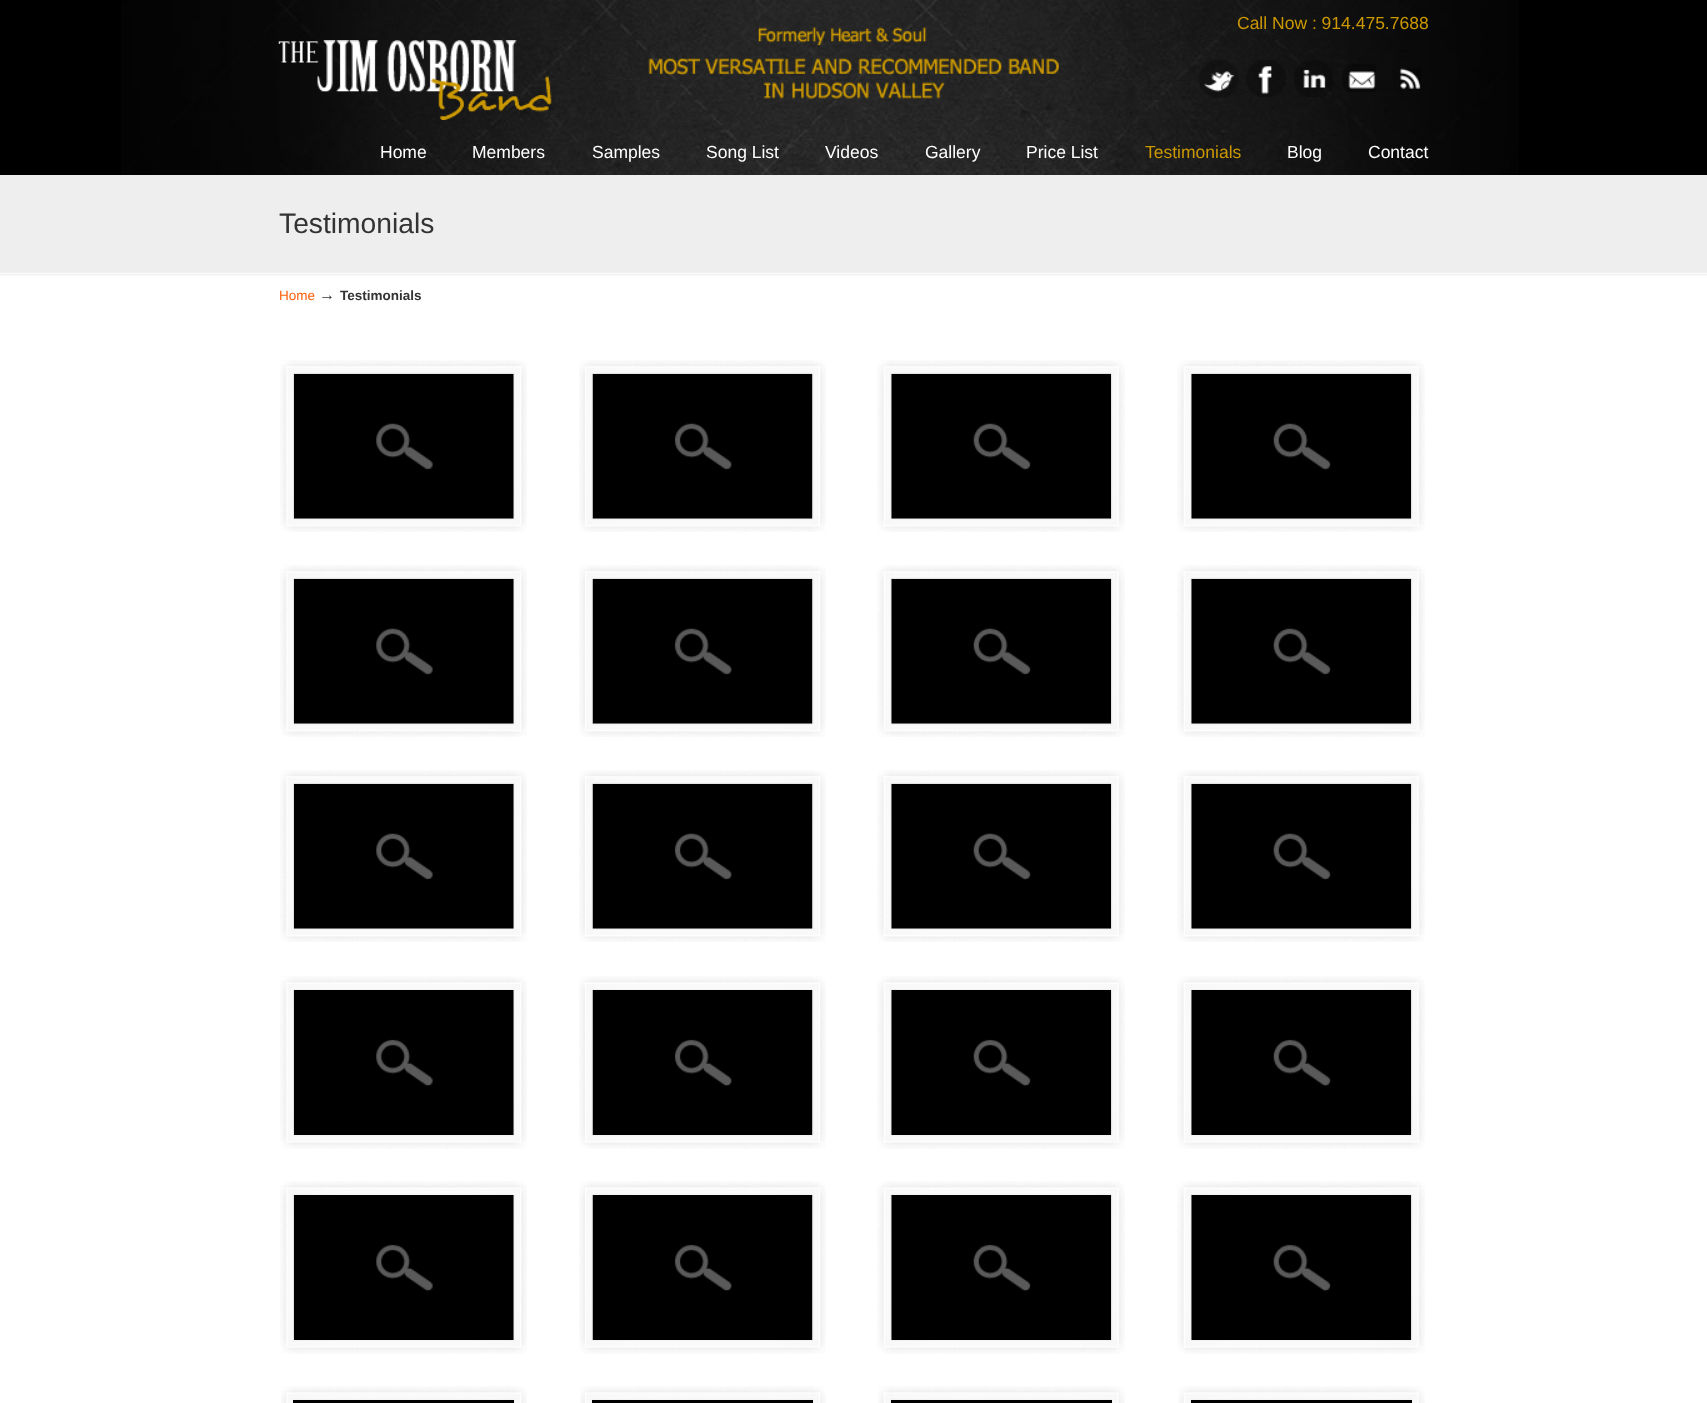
<!DOCTYPE html>
<meta charset="utf-8">
<style>body { margin: 0 } canvas { display: block }</style>
<canvas id="canvas" width="1707" height="1403"></canvas>
<img id="img1" src="img_01.png" hidden>
<img id="img2" src="img_02.png" hidden>
<img id="img3" src="img_03.png" hidden>
<img id="img4" src="img_04.png" hidden>
<img id="img5" src="img_05.png" hidden>
<img id="img6" src="img_06.png" hidden>
<img id="img7" src="img_07.png" hidden>
<img id="img8" src="img_08.png" hidden>
<img id="img9" src="img_09.png" hidden>
<img id="img10" src="img_10.png" hidden>
<img id="img11" src="img_11.png" hidden>
<img id="img12" src="img_12.png" hidden>
<img id="img13" src="img_13.png" hidden>
<img id="img14" src="img_14.png" hidden>
<img id="img15" src="img_15.png" hidden>
<img id="img16" src="img_16.png" hidden>
<img id="img17" src="img_17.png" hidden>
<img id="img18" src="img_18.png" hidden>
<img id="img19" src="img_19.png" hidden>
<img id="img20" src="img_20.png" hidden>
<img id="img21" src="img_21.png" hidden>
<img id="img22" src="img_22.png" hidden>
<img id="img23" src="img_23.png" hidden>
<img id="img24" src="img_24.png" hidden>
<img id="img25" src="img_25.png" hidden>
<img id="img26" src="img_26.png" hidden>
<img id="img27" src="img_27.png" hidden>
<img id="img28" src="img_28.png" hidden>
<img id="img29" src="img_29.png" hidden>
<img id="img30" src="img_30.png" hidden>
<img id="img31" src="img_31.png" hidden>
<img id="img32" src="img_32.png" hidden>
<img id="img33" src="img_33.png" hidden>
<img id="img34" src="img_34.png" hidden>
<img id="img35" src="img_35.png" hidden>
<img id="img36" src="img_36.png" hidden>
<img id="img37" src="img_37.png" hidden>
<script>
window.onload = function () {
	const canvas = document.getElementById("canvas");
	const ctx = canvas.getContext("2d");
	ctx.miterLimit = 4;
	ctx.fontKerning = "normal";
	function txt(s, x, y) {
		ctx.fillText(s, x, y);
	}
	function fill(x, y, w, h) {
		ctx.fillRect(x, y, w, h);
	}
	function img(id, x, y, w, h) {
		ctx.drawImage(document.getElementById(id), x, y, w, h);
	}

	ctx.fillStyle = "#000000";
	fill(0, 0, 1707, 1403);
	img("img1", 121, 0, 1398, 175);
	img("img2", 278, 40, 274, 80);
	img("img3", 1199, 60, 40, 38);
	img("img4", 1246, 60, 40, 37);
	img("img5", 1294, 60, 39, 37);
	img("img6", 1342, 64, 34, 28);
	img("img7", 1399, 68, 22, 21);
	ctx.fillStyle = "#EEEEEE";
	fill(0, 175, 1707, 98);
	ctx.fillStyle = "#FFFFFF";
	fill(0, 273, 1707, 1130);
	img("img8", 0, 272, 1707, 4);
	img("img9", 280, 360, 247, 172);
	fill(294, 374, 220, 145);
	img("img10", 293, 373, 221, 146);
	img("img11", 579, 360, 247, 172);
	fill(593, 374, 220, 145);
	img("img12", 592, 373, 221, 146);
	img("img13", 877, 360, 248, 172);
	fill(891, 374, 220, 145);
	img("img14", 891, 373, 221, 146);
	img("img15", 1177, 360, 248, 172);
	fill(1191, 374, 220, 145);
	img("img14", 1191, 373, 221, 146);
	img("img16", 280, 565, 247, 172);
	fill(294, 579, 220, 145);
	img("img17", 293, 578, 221, 146);
	img("img18", 579, 565, 247, 172);
	fill(593, 579, 220, 145);
	img("img19", 592, 578, 221, 146);
	img("img20", 877, 565, 248, 172);
	fill(891, 579, 220, 145);
	img("img21", 891, 578, 221, 146);
	img("img22", 1177, 565, 248, 172);
	fill(1191, 579, 220, 145);
	img("img21", 1191, 578, 221, 146);
	img("img9", 280, 770, 247, 172);
	fill(294, 784, 220, 145);
	img("img10", 293, 783, 221, 146);
	img("img11", 579, 770, 247, 172);
	fill(593, 784, 220, 145);
	img("img12", 592, 783, 221, 146);
	img("img13", 877, 770, 248, 172);
	fill(891, 784, 220, 145);
	img("img14", 891, 783, 221, 146);
	img("img15", 1177, 770, 248, 172);
	fill(1191, 784, 220, 145);
	img("img14", 1191, 783, 221, 146);
	img("img23", 280, 976, 247, 173);
	fill(513, 990, 1, 145);
	img("img24", 293, 990, 221, 145);
	img("img25", 579, 976, 247, 173);
	fill(812, 990, 1, 145);
	img("img26", 592, 990, 221, 145);
	img("img27", 877, 976, 248, 173);
	fill(891, 990, 1, 145);
	img("img28", 891, 990, 221, 145);
	img("img29", 1177, 976, 248, 173);
	fill(1191, 990, 1, 145);
	img("img28", 1191, 990, 221, 145);
	img("img30", 280, 1181, 247, 173);
	fill(513, 1195, 1, 145);
	img("img24", 293, 1195, 221, 145);
	img("img31", 579, 1181, 247, 173);
	fill(812, 1195, 1, 145);
	img("img26", 592, 1195, 221, 145);
	img("img32", 877, 1181, 248, 173);
	fill(891, 1195, 1, 145);
	img("img28", 891, 1195, 221, 145);
	img("img33", 1177, 1181, 248, 173);
	fill(1191, 1195, 1, 145);
	img("img28", 1191, 1195, 221, 145);
	img("img34", 281, 1386, 246, 17);
	ctx.fillStyle = "#000000";
	fill(293, 1400, 221, 3);
	img("img35", 580, 1386, 246, 17);
	fill(592, 1400, 221, 3);
	img("img36", 878, 1386, 247, 17);
	fill(891, 1400, 221, 3);
	img("img37", 1178, 1386, 247, 17);
	fill(1191, 1400, 221, 3);
	ctx.font = "17.5px Liberation Sans";
	ctx.fillStyle = "#CB9800";
	txt("Call Now : 914.475.7688", 1237, 29);
	ctx.fillStyle = "#FFFFFF";
	txt("Home", 380, 158);
	txt("Members", 472, 158);
	txt("Samples", 592, 158);
	txt("Song List", 706, 158);
	txt("Videos", 825, 158);
	txt("Gallery", 925, 158);
	txt("Price List", 1026, 158);
	ctx.fillStyle = "#CB9800";
	txt("Testimonials", 1145, 158);
	ctx.fillStyle = "#FFFFFF";
	txt("Blog", 1287, 158);
	txt("Contact", 1368, 158);
	ctx.font = "28.25px Liberation Sans";
	ctx.fillStyle = "#333333";
	txt("Testimonials", 279, 233);
	ctx.font = "13.5px Liberation Sans";
	ctx.fillStyle = "#FE5E08";
	txt("Home", 279, 300);
	ctx.font = "16px Liberation Sans";
	ctx.fillStyle = "#333333";
	txt("→", 319, 300);
	ctx.font = "bold 13.5px Liberation Sans";
	txt("Testimonials", 340, 300);
};
</script>
